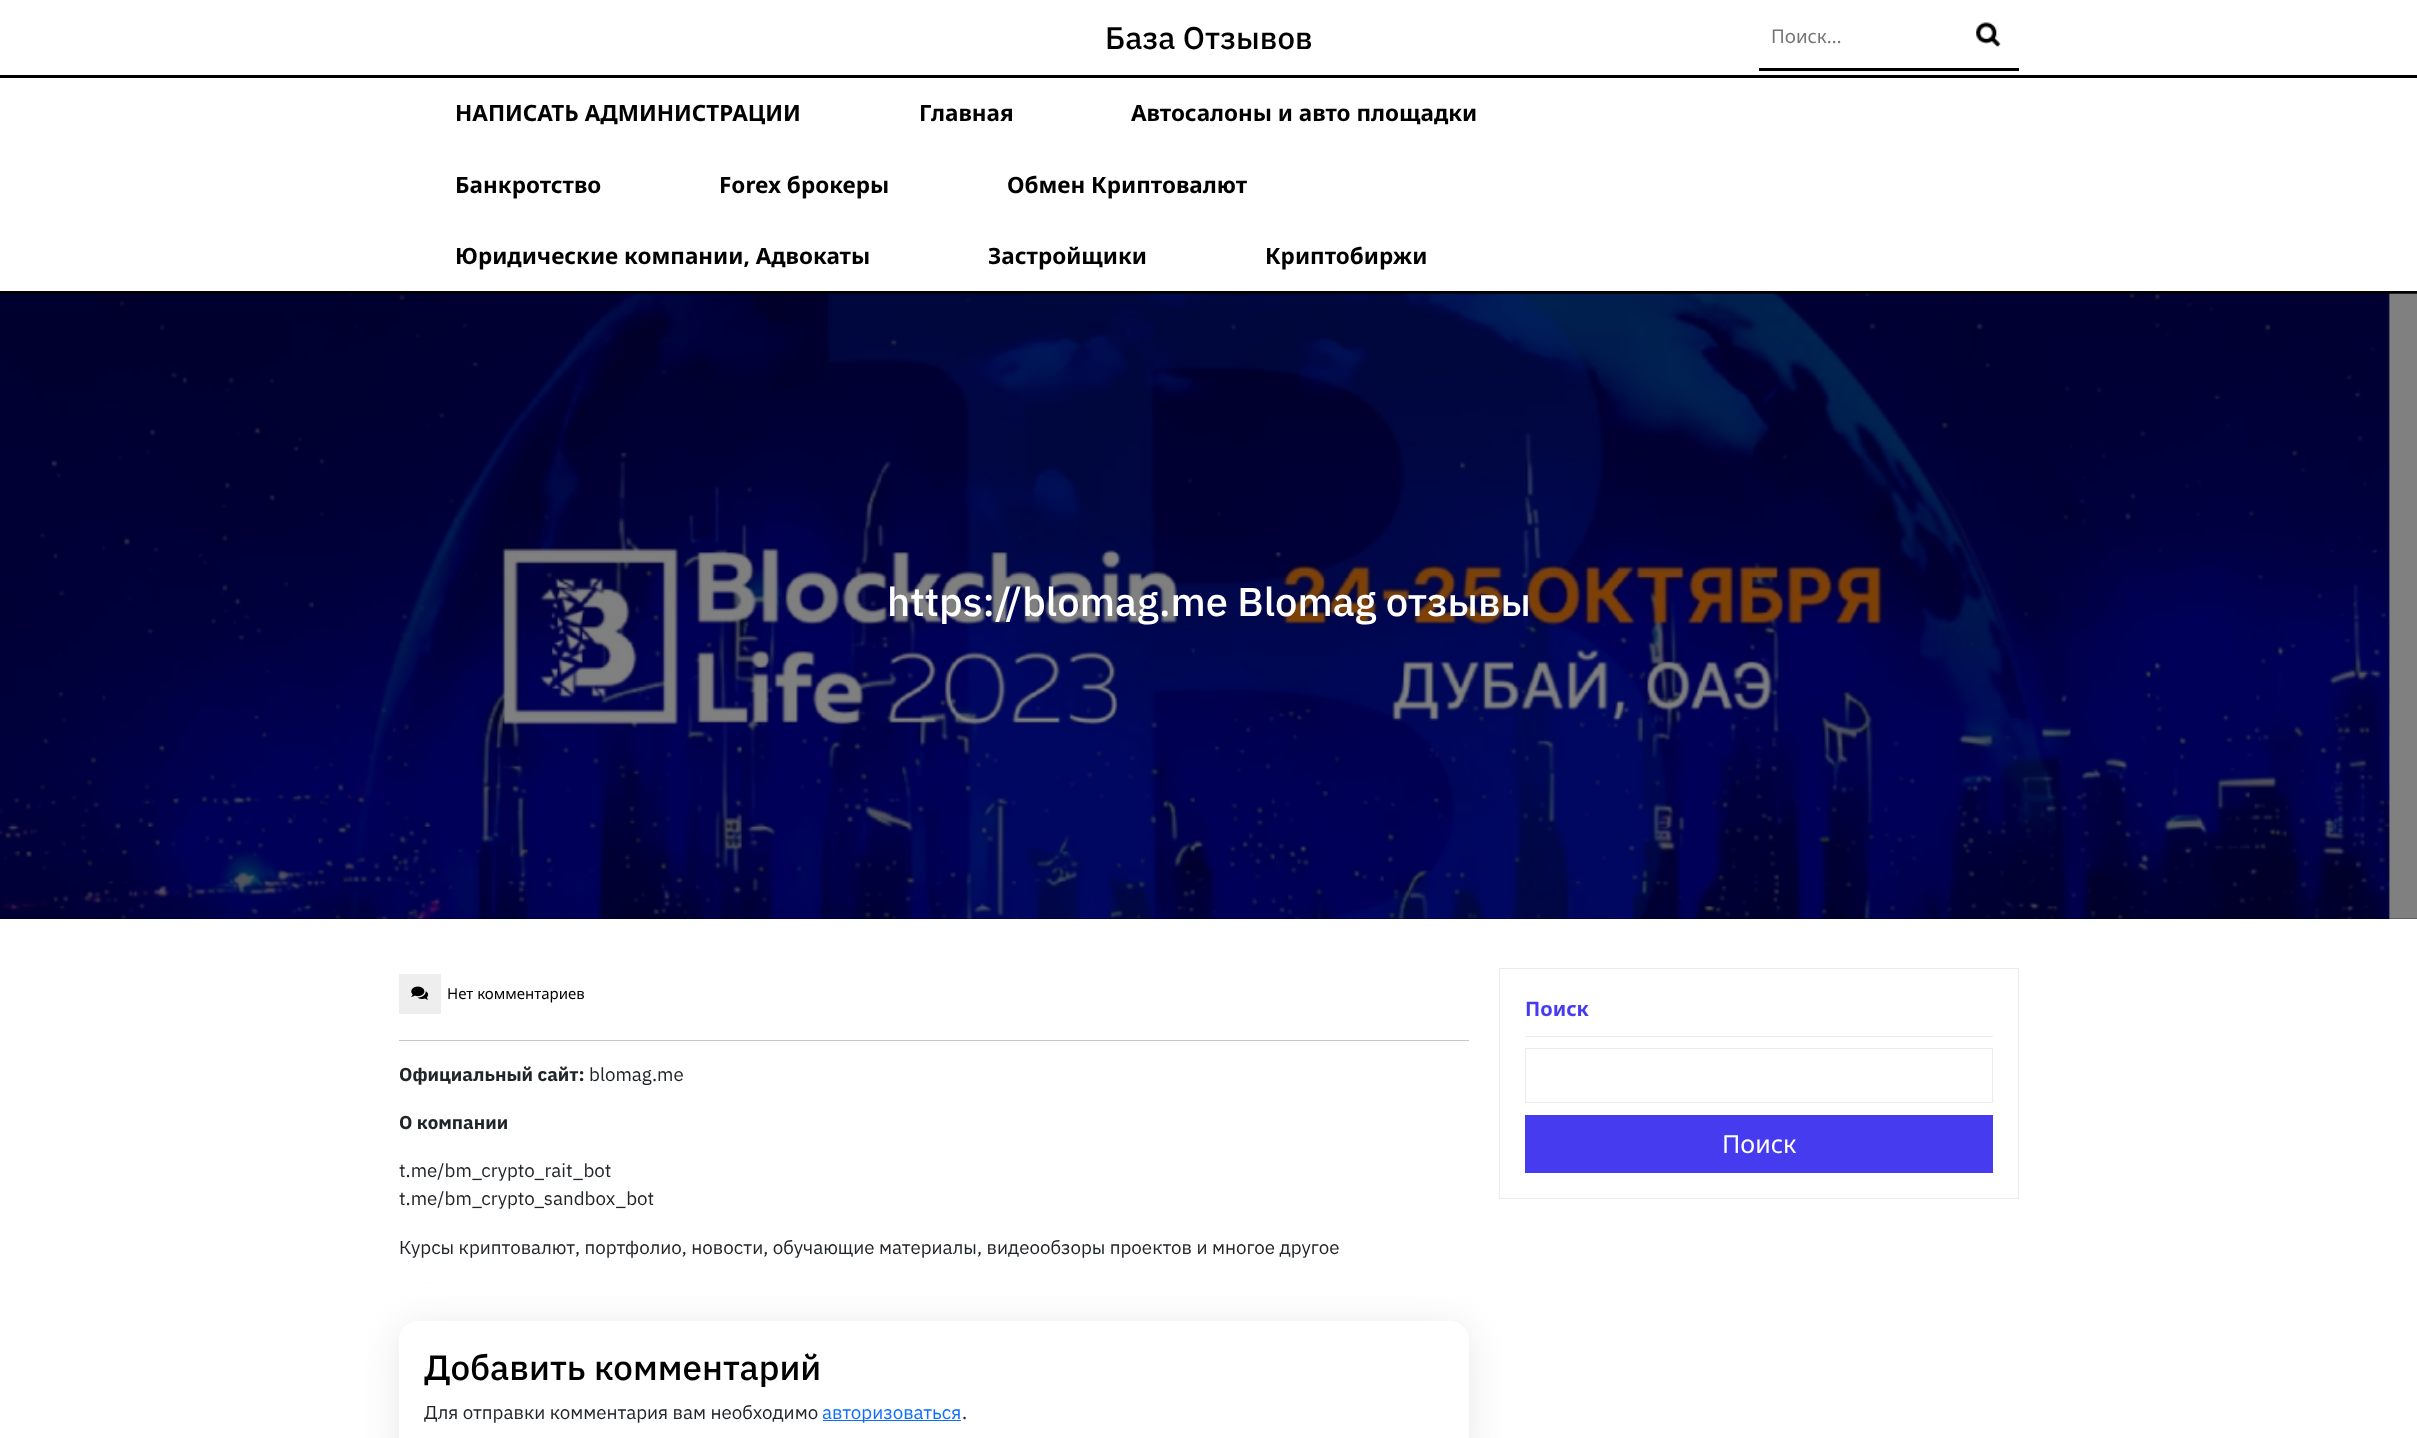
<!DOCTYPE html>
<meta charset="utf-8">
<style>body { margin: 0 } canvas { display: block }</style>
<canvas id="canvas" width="2417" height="1438"></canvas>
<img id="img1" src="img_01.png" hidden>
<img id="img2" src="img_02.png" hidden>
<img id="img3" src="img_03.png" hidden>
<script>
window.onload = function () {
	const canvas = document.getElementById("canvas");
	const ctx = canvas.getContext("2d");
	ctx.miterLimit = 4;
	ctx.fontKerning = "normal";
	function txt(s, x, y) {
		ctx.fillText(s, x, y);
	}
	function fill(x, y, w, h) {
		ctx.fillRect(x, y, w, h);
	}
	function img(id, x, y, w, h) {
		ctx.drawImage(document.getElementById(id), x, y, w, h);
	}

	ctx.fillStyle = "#FFFFFF";
	fill(0, 0, 2417, 1438);
	ctx.fillStyle = "#000000";
	fill(1759, 68, 260, 3);
	img("img1", 1976, 22, 25, 25);
	fill(0, 75, 2417, 3);
	fill(0, 291, 2417, 628);
	img("img2", 0, 293, 2417, 626);
	ctx.fillStyle = "#EEEEEE";
	fill(399, 974, 42, 40);
	img("img3", 411, 986, 18, 14);
	ctx.fillStyle = "#C8C9CA";
	fill(399, 1040, 1070, 1);
	ctx.save();
	ctx.beginPath();
	ctx.moveTo(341, 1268);
	ctx.lineTo(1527, 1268);
	ctx.lineTo(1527, 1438);
	ctx.lineTo(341, 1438);
	ctx.closePath();
	ctx.moveTo(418, 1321);
	ctx.lineTo(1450, 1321);
	ctx.bezierCurveTo(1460.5, 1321, 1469, 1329.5, 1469, 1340);
	ctx.lineTo(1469, 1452);
	ctx.bezierCurveTo(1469, 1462.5, 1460.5, 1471, 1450, 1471);
	ctx.lineTo(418, 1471);
	ctx.bezierCurveTo(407.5, 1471, 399, 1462.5, 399, 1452);
	ctx.lineTo(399, 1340);
	ctx.bezierCurveTo(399, 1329.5, 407.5, 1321, 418, 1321);
	ctx.closePath();
	ctx.clip("evenodd");
	ctx.fillStyle = "rgba(213, 213, 213, 0.55)";
	ctx.filter = "blur(19px)";
	ctx.beginPath();
	ctx.roundRect(399, 1326, 1070, 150, 19);
	ctx.fill();
	ctx.filter = "none";
	ctx.restore();
	ctx.fillStyle = "#0D6EFD";
	fill(823, 1420, 138, 1);
	ctx.strokeStyle = "#EBEBEB";
	ctx.strokeRect(1499.5, 968.5, 519, 230);
	ctx.fillStyle = "#EBEBEB";
	fill(1525, 1036, 468, 1);
	ctx.strokeRect(1525.5, 1048.5, 467, 54);
	ctx.fillStyle = "#473BF0";
	fill(1525, 1115, 468, 58);
	ctx.font = "500 31.25px IBM Plex Sans";
	ctx.fillStyle = "#000000";
	txt("База Отзывов", 1105, 49);
	ctx.font = "18.75px Noto Sans";
	ctx.fillStyle = "#757575";
	txt("Поиск…", 1771, 43);
	ctx.font = "bold 22.5px Noto Sans";
	ctx.fillStyle = "#000000";
	txt("НАПИСАТЬ АДМИНИСТРАЦИИ", 455, 121);
	txt("Главная", 919, 121);
	txt("Автосалоны и авто площадки", 1131, 121);
	txt("Банкротство", 455, 193);
	txt("Forex брокеры", 719, 193);
	txt("Обмен Криптовалют", 1007, 193);
	txt("Юридические компании, Адвокаты", 455, 264);
	txt("Застройщики", 988, 264);
	txt("Криптобиржи", 1265, 264);
	ctx.font = "500 40px IBM Plex Sans";
	ctx.fillStyle = "#FFFFFF";
	txt("https://blomag.me Blomag отзывы", 887, 616);
	ctx.font = "15px Noto Sans";
	ctx.fillStyle = "#000000";
	txt("Нет комментариев", 447, 999);
	ctx.font = "bold 18.75px IBM Plex Sans";
	ctx.fillStyle = "#212529";
	txt("Официальный сайт:", 399, 1081);
	ctx.font = "18.75px IBM Plex Sans";
	txt("blomag.me", 589, 1081);
	ctx.font = "bold 18.75px IBM Plex Sans";
	txt("О компании", 399, 1129);
	ctx.font = "18.75px IBM Plex Sans";
	txt("t.me/bm_crypto_rait_bot", 399, 1177);
	txt("t.me/bm_crypto_sandbox_bot", 399, 1205);
	txt("Курсы криптовалют, портфолио, новости, обучающие материалы, видеообзоры проектов и многое другое", 399, 1254);
	ctx.font = "500 35px IBM Plex Sans";
	ctx.fillStyle = "#000000";
	txt("Добавить комментарий", 424, 1380);
	ctx.font = "18.75px IBM Plex Sans";
	ctx.fillStyle = "#212529";
	txt("Для отправки комментария вам необходимо", 424, 1419);
	ctx.fillStyle = "#0D6EFD";
	txt("авторизоваться", 822, 1419);
	ctx.fillStyle = "#212529";
	txt(".", 962, 1419);
	ctx.font = "bold 20px Noto Sans";
	ctx.fillStyle = "#473BF0";
	txt("Поиск", 1525, 1016);
	ctx.font = "25px Noto Sans";
	ctx.fillStyle = "#FFFFFF";
	txt("Поиск", 1722, 1153);
};
</script>
